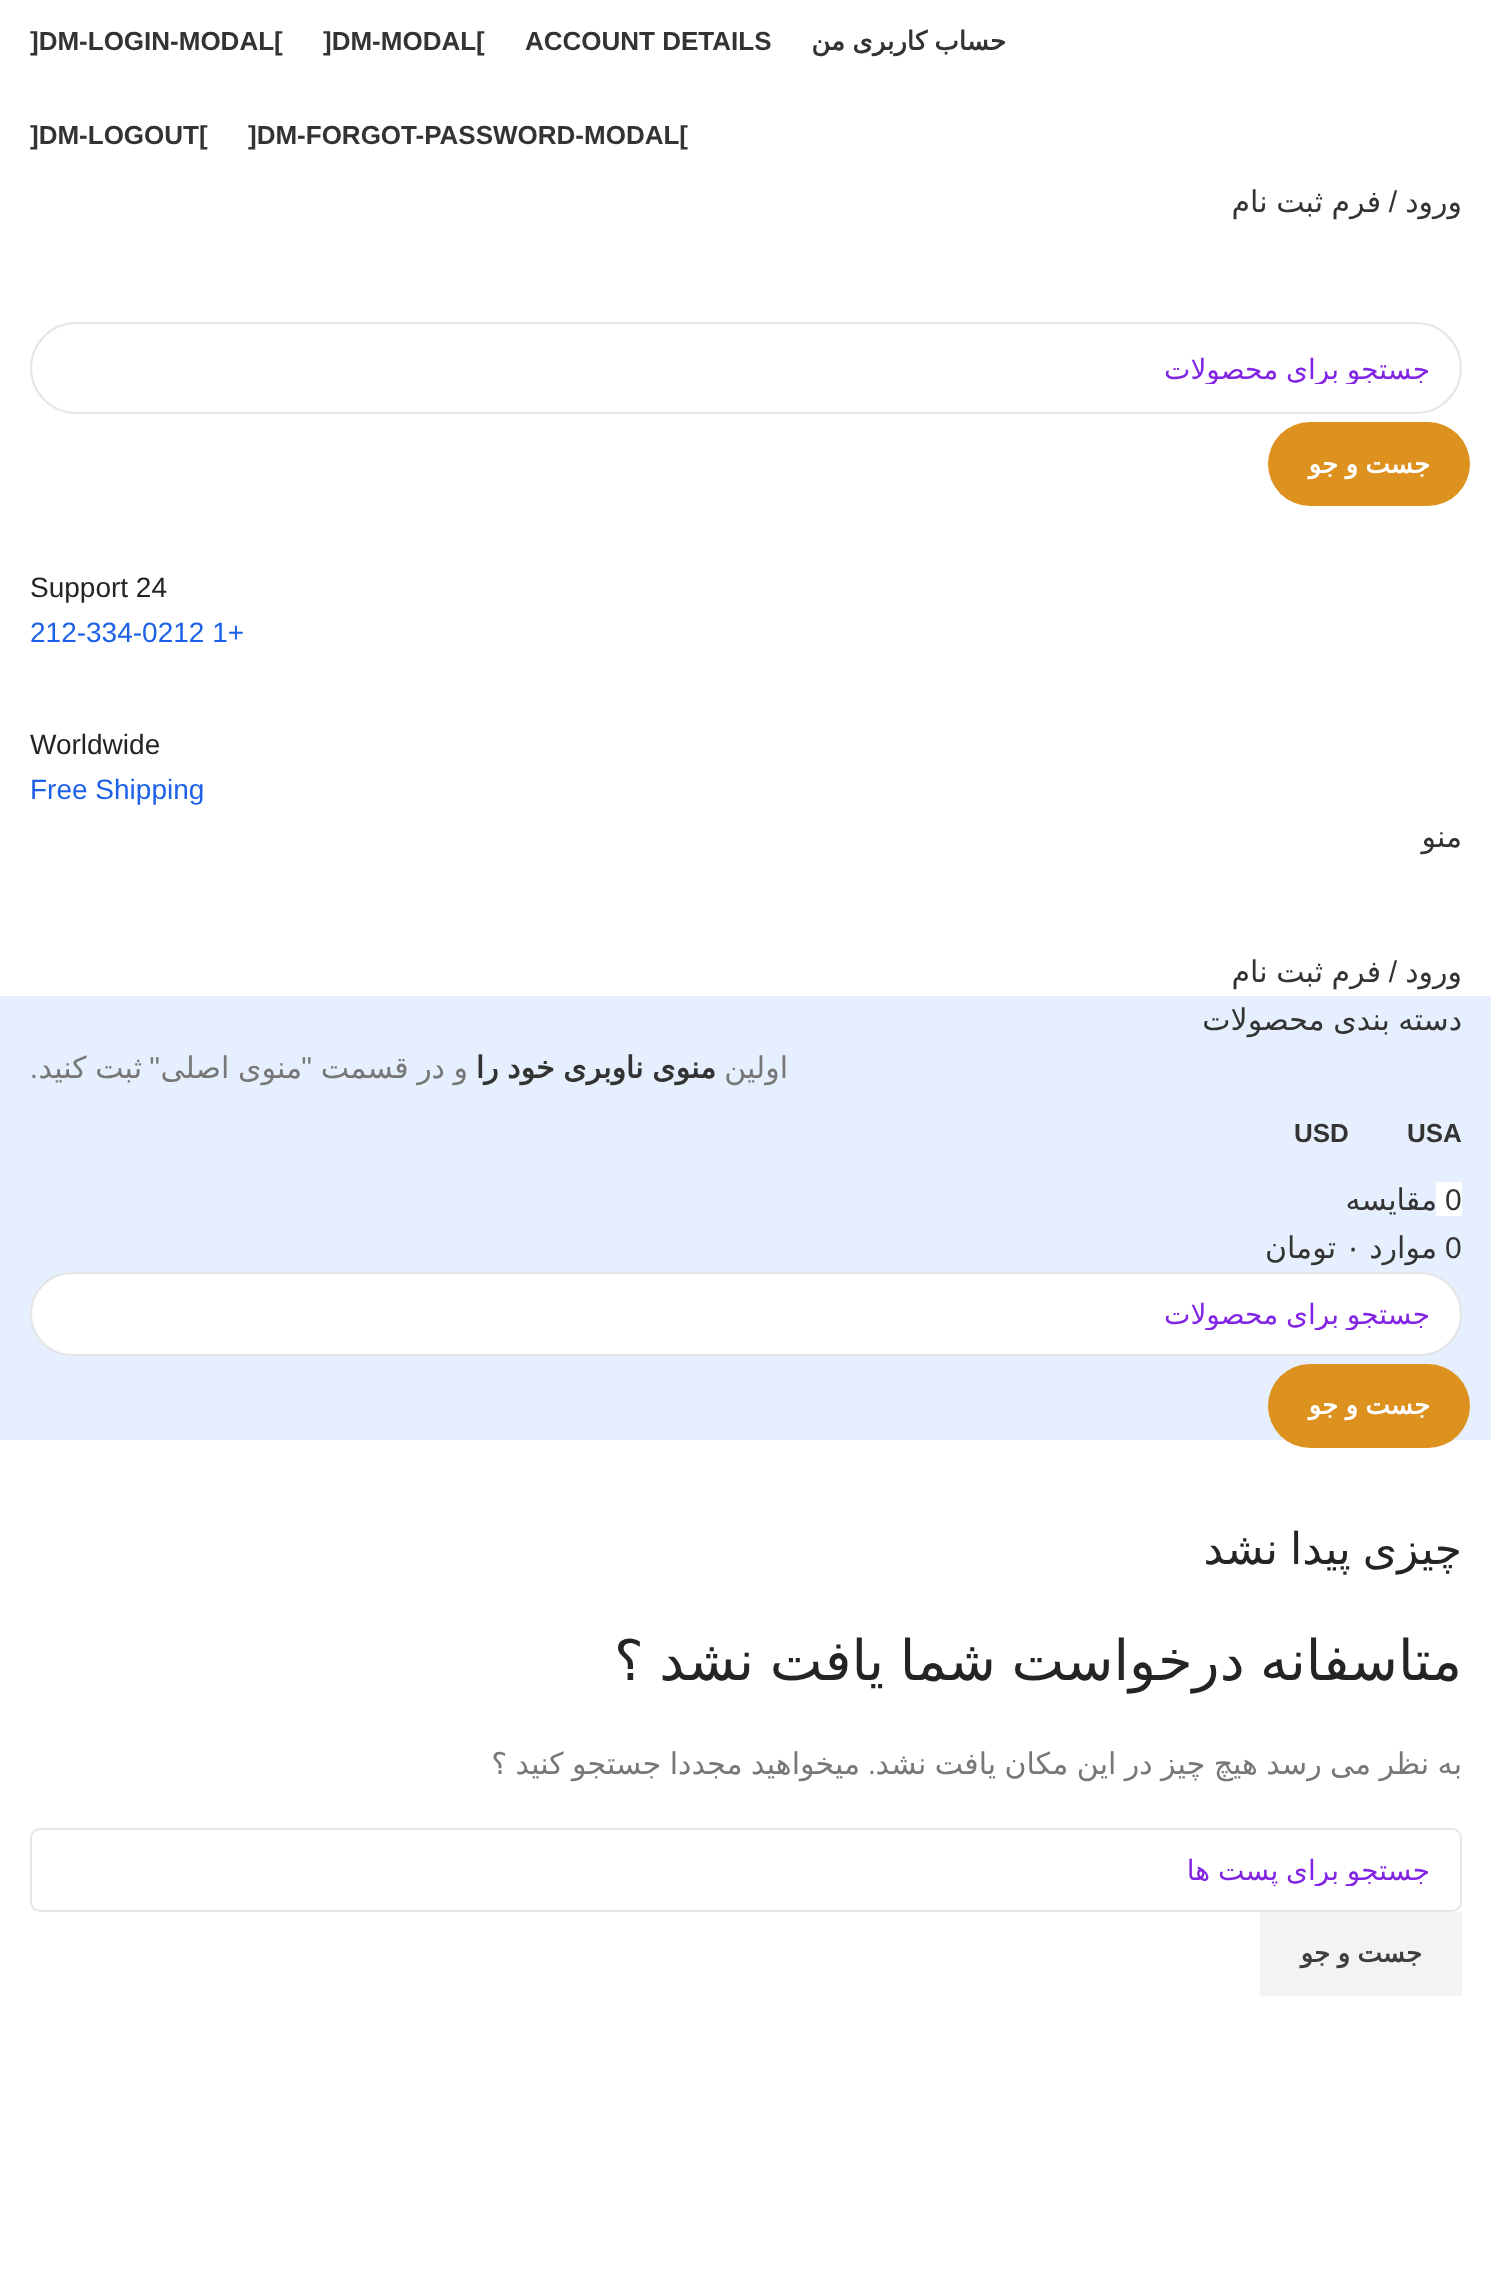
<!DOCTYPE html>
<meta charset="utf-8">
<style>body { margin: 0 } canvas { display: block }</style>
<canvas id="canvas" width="1491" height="2295"></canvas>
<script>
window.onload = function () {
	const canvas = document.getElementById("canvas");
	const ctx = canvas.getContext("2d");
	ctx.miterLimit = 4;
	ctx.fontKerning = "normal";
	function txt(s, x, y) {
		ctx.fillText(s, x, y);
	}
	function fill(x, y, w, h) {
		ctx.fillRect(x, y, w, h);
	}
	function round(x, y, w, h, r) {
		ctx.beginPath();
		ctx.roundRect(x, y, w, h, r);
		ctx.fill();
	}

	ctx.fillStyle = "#FFFFFF";
	fill(0, 0, 1491, 2295);
	ctx.beginPath();
	ctx.roundRect(31, 323, 1430, 90, 45);
	ctx.strokeStyle = "#E6E6E6";
	ctx.lineWidth = 2;
	ctx.stroke();
	ctx.fillStyle = "#DD911F";
	round(1268, 422, 202, 84, 42);
	ctx.fillStyle = "#E6EFFD";
	fill(0, 996, 1491, 444);
	ctx.fillStyle = "#FFFFFF";
	fill(1436, 1182, 26, 34);
	round(30, 1272, 1432, 84, 42);
	ctx.beginPath();
	ctx.roundRect(31, 1273, 1430, 82, 41);
	ctx.strokeStyle = "rgba(0, 0, 0, 0.1)";
	ctx.stroke();
	ctx.fillStyle = "#DD911F";
	round(1268, 1364, 202, 84, 42);
	ctx.beginPath();
	ctx.roundRect(31, 1829, 1430, 82, 9);
	ctx.strokeStyle = "#E6E6E6";
	ctx.stroke();
	ctx.fillStyle = "#F3F3F3";
	fill(1260, 1912, 202, 84);
	ctx.wordSpacing = "-1px";
	ctx.direction = "rtl";
	ctx.font = "bold 26px DejaVu Sans";
	ctx.fillStyle = "#333333";
	txt("حساب کاربری من", 1006, 50);
	ctx.wordSpacing = "0px";
	ctx.direction = "ltr";
	ctx.font = "bold 26px Liberation Sans";
	txt("ACCOUNT DETAILS", 525, 50);
	txt("]DM-MODAL[", 323, 50);
	txt("]DM-LOGIN-MODAL[", 30, 50);
	txt("]DM-FORGOT-PASSWORD-MODAL[", 248, 144);
	txt("]DM-LOGOUT[", 30, 144);
	ctx.direction = "rtl";
	ctx.font = "30px DejaVu Sans";
	txt("ورود", 1462, 212);
	ctx.font = "30px Liberation Sans";
	txt("/", 1397, 212);
	ctx.wordSpacing = "-1px";
	ctx.font = "30px DejaVu Sans";
	txt("فرم ثبت نام", 1381, 212);
	ctx.save();
	ctx.beginPath();
	ctx.rect(62, 352, 1368, 32);
	ctx.clip();
	ctx.wordSpacing = "-1.1px";
	ctx.font = "28px DejaVu Sans";
	ctx.fillStyle = "#8224E3";
	txt("جستجو برای محصولات", 1430, 379);
	ctx.restore();
	ctx.font = "bold 26px DejaVu Sans";
	ctx.fillStyle = "#FFFFFF";
	txt("جست و جو", 1430, 473);
	ctx.wordSpacing = "0px";
	ctx.direction = "ltr";
	ctx.font = "28px Liberation Sans";
	ctx.fillStyle = "#242424";
	txt("Support 24", 30, 597);
	ctx.fillStyle = "#1C61E7";
	txt("212-334-0212 1+", 30, 642);
	ctx.fillStyle = "#242424";
	txt("Worldwide", 30, 754);
	ctx.fillStyle = "#1C61E7";
	txt("Free Shipping", 30, 799);
	ctx.direction = "rtl";
	ctx.font = "30px DejaVu Sans";
	ctx.fillStyle = "#333333";
	txt("منو", 1462, 847);
	txt("ورود", 1462, 982);
	ctx.font = "30px Liberation Sans";
	txt("/", 1397, 982);
	ctx.wordSpacing = "-1px";
	ctx.font = "30px DejaVu Sans";
	txt("فرم ثبت نام", 1381, 982);
	txt("دسته بندی محصولات", 1462, 1030);
	ctx.wordSpacing = "0px";
	ctx.fillStyle = "#777777";
	txt("اولین", 788, 1078);
	ctx.wordSpacing = "-1px";
	ctx.font = "bold 30px DejaVu Sans";
	ctx.fillStyle = "#333333";
	txt("منوی ناوبری خود را", 716, 1078);
	ctx.font = "30px DejaVu Sans";
	ctx.fillStyle = "#777777";
	txt("و در قسمت", 468, 1078);
	ctx.wordSpacing = "0px";
	ctx.font = "30px Liberation Sans";
	txt("\"", 312, 1078);
	ctx.wordSpacing = "-1px";
	ctx.font = "30px DejaVu Sans";
	txt("منوی اصلی", 302, 1078);
	ctx.wordSpacing = "0px";
	ctx.font = "30px Liberation Sans";
	txt("\"", 160, 1078);
	ctx.wordSpacing = "-1px";
	ctx.font = "30px DejaVu Sans";
	txt("ثبت کنید", 142, 1078);
	ctx.wordSpacing = "0px";
	ctx.font = "30px Liberation Sans";
	txt(".", 38, 1078);
	ctx.direction = "ltr";
	ctx.font = "bold 26px Liberation Sans";
	ctx.fillStyle = "#333333";
	txt("USA", 1407, 1142);
	txt("USD", 1294, 1142);
	ctx.font = "30px Liberation Sans";
	txt("0", 1445, 1210);
	ctx.direction = "rtl";
	ctx.font = "30px DejaVu Sans";
	txt("مقایسه", 1437, 1210);
	ctx.direction = "ltr";
	ctx.font = "30px Liberation Sans";
	txt("0", 1445, 1258);
	ctx.direction = "rtl";
	ctx.font = "30px DejaVu Sans";
	txt("موارد", 1437, 1258);
	ctx.direction = "ltr";
	txt("۰", 1345, 1258);
	ctx.direction = "rtl";
	txt("تومان", 1336, 1258);
	ctx.save();
	ctx.beginPath();
	ctx.rect(62, 1298, 1368, 32);
	ctx.clip();
	ctx.wordSpacing = "-1.1px";
	ctx.font = "28px DejaVu Sans";
	ctx.fillStyle = "#8224E3";
	txt("جستجو برای محصولات", 1430, 1324);
	ctx.restore();
	ctx.wordSpacing = "-1px";
	ctx.font = "bold 26px DejaVu Sans";
	ctx.fillStyle = "#FFFFFF";
	txt("جست و جو", 1430, 1414);
	ctx.wordSpacing = "-2px";
	ctx.font = "44px DejaVu Sans";
	ctx.fillStyle = "#242424";
	txt("چیزی پیدا نشد", 1462, 1564);
	ctx.wordSpacing = "-2.25px";
	ctx.font = "56px DejaVu Sans";
	txt("متاسفانه درخواست شما یافت نشد ؟", 1462, 1680);
	ctx.wordSpacing = "-1.1px";
	ctx.font = "30px DejaVu Sans";
	ctx.fillStyle = "#777777";
	txt("به نظر می رسد هیچ چیز در این مکان یافت نشد", 1462, 1774);
	ctx.wordSpacing = "0px";
	ctx.font = "30px Liberation Sans";
	txt(".", 876, 1774);
	ctx.wordSpacing = "-1.1px";
	ctx.font = "30px DejaVu Sans";
	txt("میخواهید مجددا جستجو کنید ؟", 860, 1774);
	ctx.save();
	ctx.beginPath();
	ctx.rect(62, 1854, 1368, 32);
	ctx.clip();
	ctx.font = "28px DejaVu Sans";
	ctx.fillStyle = "#8224E3";
	txt("جستجو برای پست ها", 1430, 1880);
	ctx.restore();
	ctx.wordSpacing = "-1px";
	ctx.font = "bold 26px DejaVu Sans";
	ctx.fillStyle = "#3E3E3E";
	txt("جست و جو", 1422, 1962);
};
</script>
